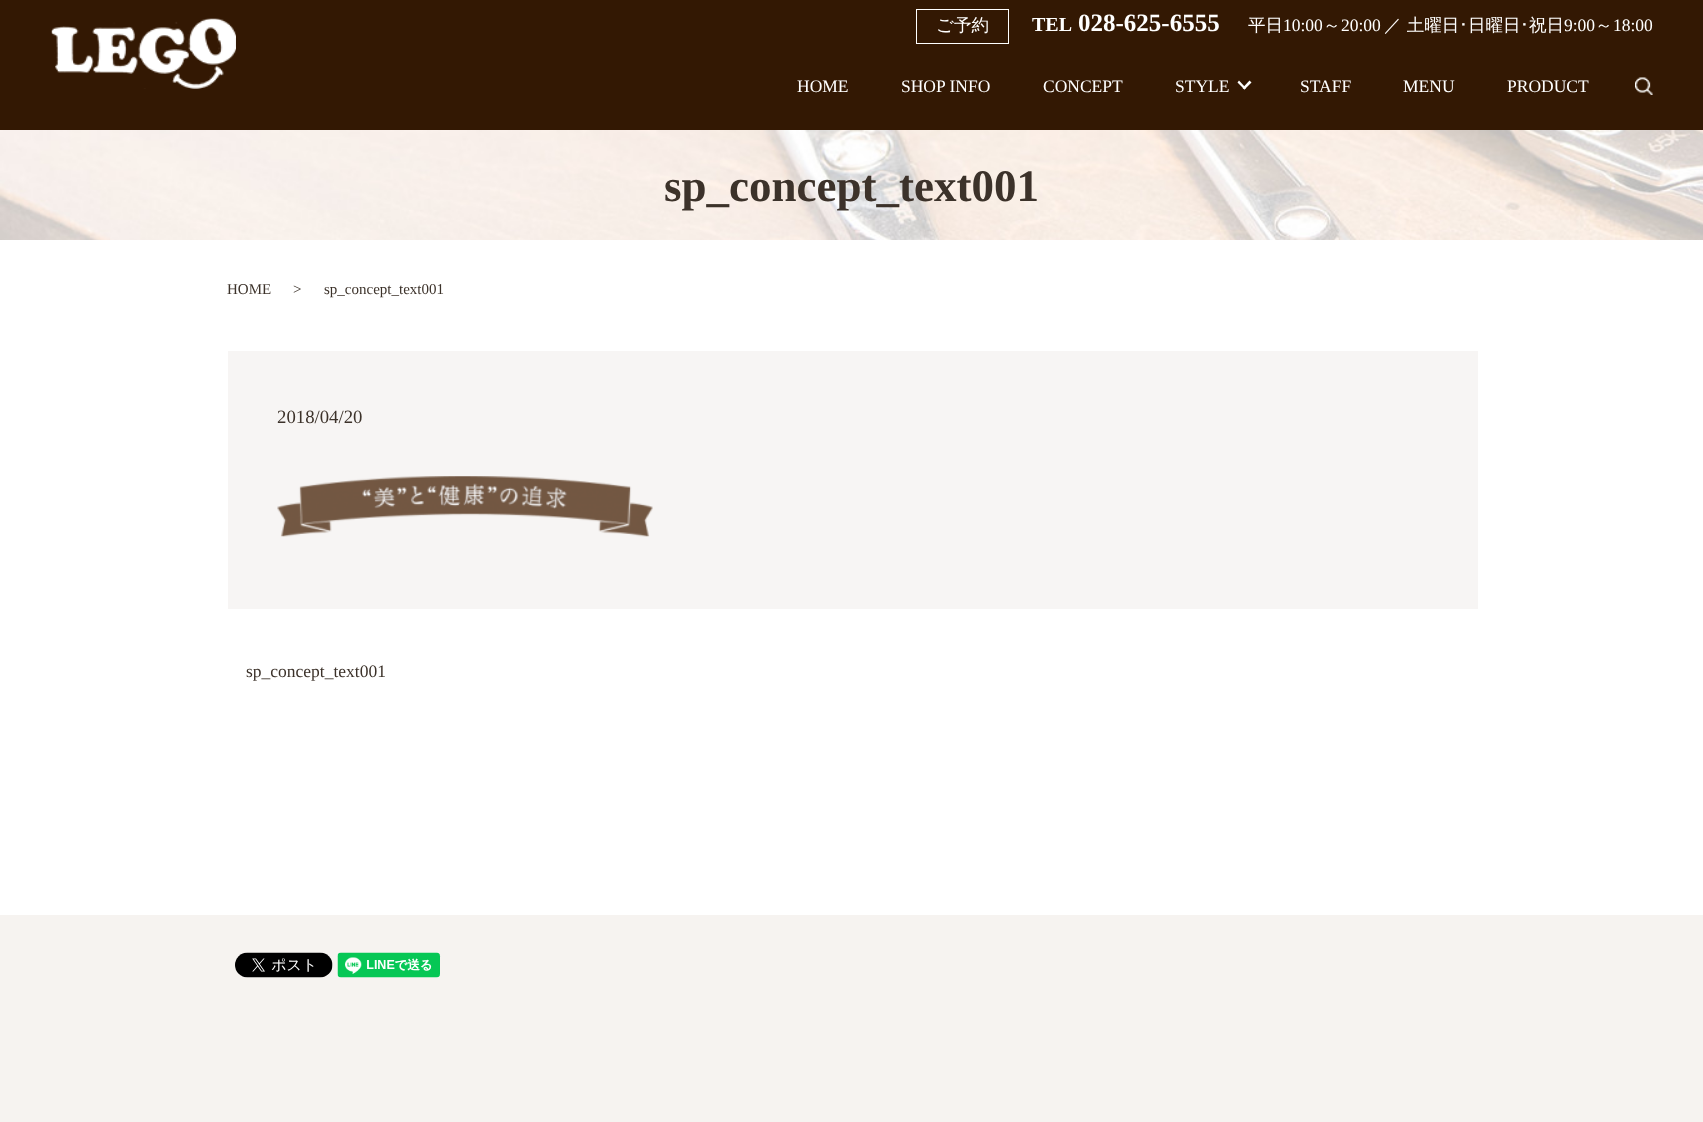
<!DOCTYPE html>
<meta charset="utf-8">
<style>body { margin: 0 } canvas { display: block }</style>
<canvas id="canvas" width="1703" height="1122"></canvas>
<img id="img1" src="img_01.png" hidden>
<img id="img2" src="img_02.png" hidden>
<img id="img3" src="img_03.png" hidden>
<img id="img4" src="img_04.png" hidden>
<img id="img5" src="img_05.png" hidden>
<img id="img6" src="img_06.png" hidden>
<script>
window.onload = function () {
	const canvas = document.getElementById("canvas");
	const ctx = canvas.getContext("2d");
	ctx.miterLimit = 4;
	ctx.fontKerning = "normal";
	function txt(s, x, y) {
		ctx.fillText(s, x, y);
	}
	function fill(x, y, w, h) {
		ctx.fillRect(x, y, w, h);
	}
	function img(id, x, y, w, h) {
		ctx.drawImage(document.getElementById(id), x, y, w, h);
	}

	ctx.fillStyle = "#FFFFFF";
	fill(0, 0, 1703, 1122);
	ctx.fillStyle = "#331803";
	fill(0, 0, 1703, 130);
	img("img1", 51, 18, 185, 71);
	ctx.strokeStyle = "#FFFFFF";
	ctx.strokeRect(916.5, 9.5, 92, 34);
	ctx.fillStyle = "#FFFFFF";
	ctx.beginPath();
	ctx.moveTo(1251.5, 82.5);
	ctx.lineTo(1244.5, 89.5);
	ctx.lineTo(1242.5, 88);
	ctx.lineTo(1249.5, 80.5);
	ctx.closePath();
	ctx.fill();
	ctx.beginPath();
	ctx.moveTo(1246, 88);
	ctx.lineTo(1244.5, 89.5);
	ctx.lineTo(1237.5, 82.5);
	ctx.lineTo(1239, 80.5);
	ctx.closePath();
	ctx.fill();
	img("img2", 1635, 77, 18, 18);
	img("img3", 0, 130, 1703, 110);
	ctx.fillStyle = "#F7F5F4";
	fill(228, 351, 1250, 258);
	img("img4", 277, 476, 376, 61);
	ctx.fillStyle = "#F6F3F0";
	fill(0, 915, 1703, 207);
	img("img5", 235, 952, 98, 26);
	img("img6", 337, 952, 104, 26);
	ctx.font = "500 17.5px WenQuanYi Zen Hei";
	ctx.fillStyle = "#FFFFFF";
	txt("ご予約", 936, 31);
	ctx.font = "bold 20px Liberation Serif";
	txt("TEL", 1032, 31);
	ctx.font = "bold 25px Liberation Serif";
	txt("028-625-6555", 1078, 31);
	ctx.font = "500 17.5px WenQuanYi Zen Hei";
	txt("平日", 1248, 31);
	ctx.font = "17.5px Liberation Serif";
	txt("10:00", 1283, 31);
	ctx.font = "500 17.5px WenQuanYi Zen Hei";
	txt("～", 1323, 31);
	ctx.font = "17.5px Liberation Serif";
	txt("20:00", 1341, 31);
	ctx.font = "500 17.5px WenQuanYi Zen Hei";
	txt("／ 土曜日", 1384, 31);
	ctx.font = "17.5px IPAPGothic";
	txt("･", 1459, 31);
	ctx.font = "500 17.5px WenQuanYi Zen Hei";
	txt("日曜日", 1468, 31);
	ctx.font = "17.5px IPAPGothic";
	txt("･", 1520, 31);
	ctx.font = "500 17.5px WenQuanYi Zen Hei";
	txt("祝日", 1529, 31);
	ctx.font = "17.5px Liberation Serif";
	txt("9:00", 1564, 31);
	ctx.font = "500 17.5px WenQuanYi Zen Hei";
	txt("～", 1595, 31);
	ctx.font = "17.5px Liberation Serif";
	txt("18:00", 1613, 31);
	txt("HOME", 797, 92);
	txt("SHOP INFO", 901, 92);
	txt("CONCEPT", 1043, 92);
	txt("STYLE", 1175, 92);
	txt("STAFF", 1300, 92);
	txt("MENU", 1403, 92);
	txt("PRODUCT", 1507, 92);
	ctx.font = "bold 45px Liberation Serif";
	ctx.fillStyle = "#3C322A";
	txt("sp_concept_text001", 664, 201);
	ctx.font = "15px Liberation Serif";
	txt("HOME", 227, 294);
	txt(">", 293, 294);
	txt("sp_concept_text001", 324, 294);
	ctx.font = "18.75px Liberation Serif";
	txt("2018/04/20", 277, 423);
	ctx.font = "17.5px Liberation Serif";
	txt("sp_concept_text001", 246, 677);
};
</script>
